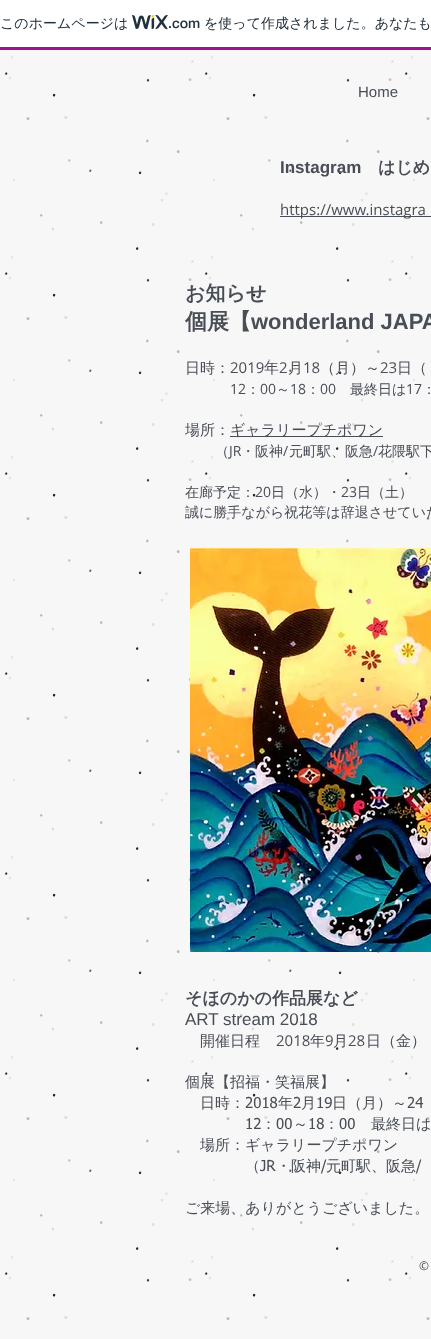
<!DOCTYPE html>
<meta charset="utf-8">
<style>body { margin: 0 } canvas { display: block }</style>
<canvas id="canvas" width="431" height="1339"></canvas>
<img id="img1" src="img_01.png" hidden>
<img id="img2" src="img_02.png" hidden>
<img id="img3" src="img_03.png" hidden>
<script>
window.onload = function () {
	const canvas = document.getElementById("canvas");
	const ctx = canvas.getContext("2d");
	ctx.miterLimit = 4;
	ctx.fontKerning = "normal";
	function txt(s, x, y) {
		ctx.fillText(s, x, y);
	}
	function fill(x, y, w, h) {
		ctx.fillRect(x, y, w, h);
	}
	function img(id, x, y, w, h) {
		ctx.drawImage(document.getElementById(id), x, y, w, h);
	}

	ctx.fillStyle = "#F7F7F7";
	fill(0, 0, 431, 1339);
	ctx.fillStyle = "#FFFFFF";
	fill(0, 0, 431, 47);
	ctx.fillStyle = "#A0138E";
	fill(0, 47, 431, 3);
	img("img1", 132, 15, 36, 15);
	img("img2", 5, 55, 425, 1265);
	ctx.fillStyle = "#484D56";
	fill(280, 216, 151, 1);
	fill(230, 436, 153, 1);
	img("img3", 190, 548, 241, 404);
	ctx.font = "500 14px WenQuanYi Zen Hei";
	ctx.fillStyle = "#20303C";
	txt("このホームページは", 0, 28);
	ctx.font = "500 14px 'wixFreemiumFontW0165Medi'";
	txt(".com", 168, 28);
	ctx.font = "500 14px WenQuanYi Zen Hei";
	txt("を使って作成されました。あなたも", 204, 28);
	ctx.font = "15px Liberation Sans";
	ctx.fillStyle = "#484D56";
	txt("Home", 358, 97);
	ctx.font = "bold 17px Liberation Sans";
	txt("Instagram", 280, 173);
	ctx.font = "bold 17px WenQuanYi Zen Hei";
	txt("はじめ", 378, 173);
	ctx.font = "15px Open Sans";
	txt("https://www.instagra", 280, 215);
	ctx.font = "bold 20px WenQuanYi Zen Hei";
	txt("お知らせ", 185, 300);
	ctx.font = "bold 22px WenQuanYi Zen Hei";
	txt("個展【", 185, 329);
	ctx.font = "bold 22px Liberation Sans";
	txt("wonderland JAPA", 251, 329);
	ctx.font = "500 15px WenQuanYi Zen Hei";
	txt("日時：", 185, 373);
	ctx.font = "15px Open Sans";
	txt("2019", 230, 373);
	ctx.font = "500 15px WenQuanYi Zen Hei";
	txt("年", 264, 373);
	ctx.font = "15px Open Sans";
	txt("2", 279, 373);
	ctx.font = "500 15px WenQuanYi Zen Hei";
	txt("月", 288, 373);
	ctx.font = "15px Open Sans";
	txt("18", 303, 373);
	ctx.font = "500 15px WenQuanYi Zen Hei";
	txt("（月）～", 320, 373);
	ctx.font = "15px Open Sans";
	txt("23", 380, 373);
	ctx.font = "500 15px WenQuanYi Zen Hei";
	txt("日（", 397, 373);
	ctx.font = "14px Open Sans";
	txt("12", 230, 394);
	ctx.font = "500 14px WenQuanYi Zen Hei";
	txt("：", 246, 394);
	ctx.font = "14px Open Sans";
	txt("00", 260, 394);
	ctx.font = "500 14px WenQuanYi Zen Hei";
	txt("～", 276, 394);
	ctx.font = "14px Open Sans";
	txt("18", 290, 394);
	ctx.font = "500 14px WenQuanYi Zen Hei";
	txt("：", 306, 394);
	ctx.font = "14px Open Sans";
	txt("00", 320, 394);
	ctx.font = "500 14px WenQuanYi Zen Hei";
	txt("最終日は", 350, 394);
	ctx.font = "14px Open Sans";
	txt("17", 406, 394);
	ctx.font = "500 14px WenQuanYi Zen Hei";
	txt("：", 422, 394);
	ctx.font = "500 15px WenQuanYi Zen Hei";
	txt("場所：", 185, 435);
	txt("ギャラリープチポワン", 230, 435);
	ctx.font = "500 14px WenQuanYi Zen Hei";
	txt("（", 215, 456);
	ctx.font = "14px Open Sans";
	txt("JR", 229, 456);
	ctx.font = "500 14px WenQuanYi Zen Hei";
	txt("・阪神", 241, 456);
	ctx.font = "14px Open Sans";
	txt("/", 283, 456);
	ctx.font = "500 14px WenQuanYi Zen Hei";
	txt("元町駅、阪急", 289, 456);
	ctx.font = "14px Open Sans";
	txt("/", 373, 456);
	ctx.font = "500 14px WenQuanYi Zen Hei";
	txt("花隈駅下", 378, 456);
	txt("在廊予定：", 185, 497);
	ctx.font = "14px Open Sans";
	txt("20", 255, 497);
	ctx.font = "500 14px WenQuanYi Zen Hei";
	txt("日（水）・", 271, 497);
	ctx.font = "14px Open Sans";
	txt("23", 341, 497);
	ctx.font = "500 14px WenQuanYi Zen Hei";
	txt("日（土）", 357, 497);
	txt("誠に勝手ながら祝花等は辞退させていた", 185, 517);
	ctx.font = "bold 17px WenQuanYi Zen Hei";
	txt("そほのかの作品展など", 185, 1004);
	ctx.font = "17px Liberation Sans";
	txt("ART stream 2018", 185, 1025);
	ctx.font = "500 15px WenQuanYi Zen Hei";
	txt("開催日程", 200, 1046);
	ctx.font = "15px Open Sans";
	txt("2018", 276, 1046);
	ctx.font = "500 15px WenQuanYi Zen Hei";
	txt("年", 310, 1046);
	ctx.font = "15px Open Sans";
	txt("9", 325, 1046);
	ctx.font = "500 15px WenQuanYi Zen Hei";
	txt("月", 333, 1046);
	ctx.font = "15px Open Sans";
	txt("28", 348, 1046);
	ctx.font = "500 15px WenQuanYi Zen Hei";
	txt("日（金）", 366, 1046);
	txt("個展【招福・笑福展】", 185, 1087);
	txt("日時：", 200, 1108);
	ctx.font = "15px tahoma";
	txt("2018", 245, 1108);
	ctx.font = "500 15px WenQuanYi Zen Hei";
	txt("年", 278, 1108);
	ctx.font = "15px tahoma";
	txt("2", 293, 1108);
	ctx.font = "500 15px WenQuanYi Zen Hei";
	txt("月", 301, 1108);
	ctx.font = "15px tahoma";
	txt("19", 316, 1108);
	ctx.font = "500 15px WenQuanYi Zen Hei";
	txt("日（月）～", 332, 1108);
	ctx.font = "15px tahoma";
	txt("24", 407, 1108);
	txt("12", 245, 1129);
	ctx.font = "500 15px WenQuanYi Zen Hei";
	txt("：", 261, 1129);
	ctx.font = "15px tahoma";
	txt("00", 276, 1129);
	ctx.font = "500 15px WenQuanYi Zen Hei";
	txt("～", 293, 1129);
	ctx.font = "15px tahoma";
	txt("18", 308, 1129);
	ctx.font = "500 15px WenQuanYi Zen Hei";
	txt("：", 324, 1129);
	ctx.font = "15px tahoma";
	txt("00", 339, 1129);
	ctx.font = "500 15px WenQuanYi Zen Hei";
	txt("最終日は", 371, 1129);
	txt("場所：ギャラリープチポワン", 200, 1150);
	txt("（", 245, 1171);
	ctx.font = "15px tahoma";
	txt("JR", 260, 1171);
	ctx.font = "500 15px WenQuanYi Zen Hei";
	txt("・阪神", 276, 1171);
	ctx.font = "15px tahoma";
	txt("/", 321, 1171);
	ctx.font = "500 15px WenQuanYi Zen Hei";
	txt("元町駅、阪急", 326, 1171);
	ctx.font = "15px tahoma";
	txt("/", 416, 1171);
	ctx.font = "500 15px WenQuanYi Zen Hei";
	txt("ご来場、ありがとうございました。", 185, 1213);
	ctx.font = "12px Open Sans";
	txt("©", 419, 1270);
};
</script>
